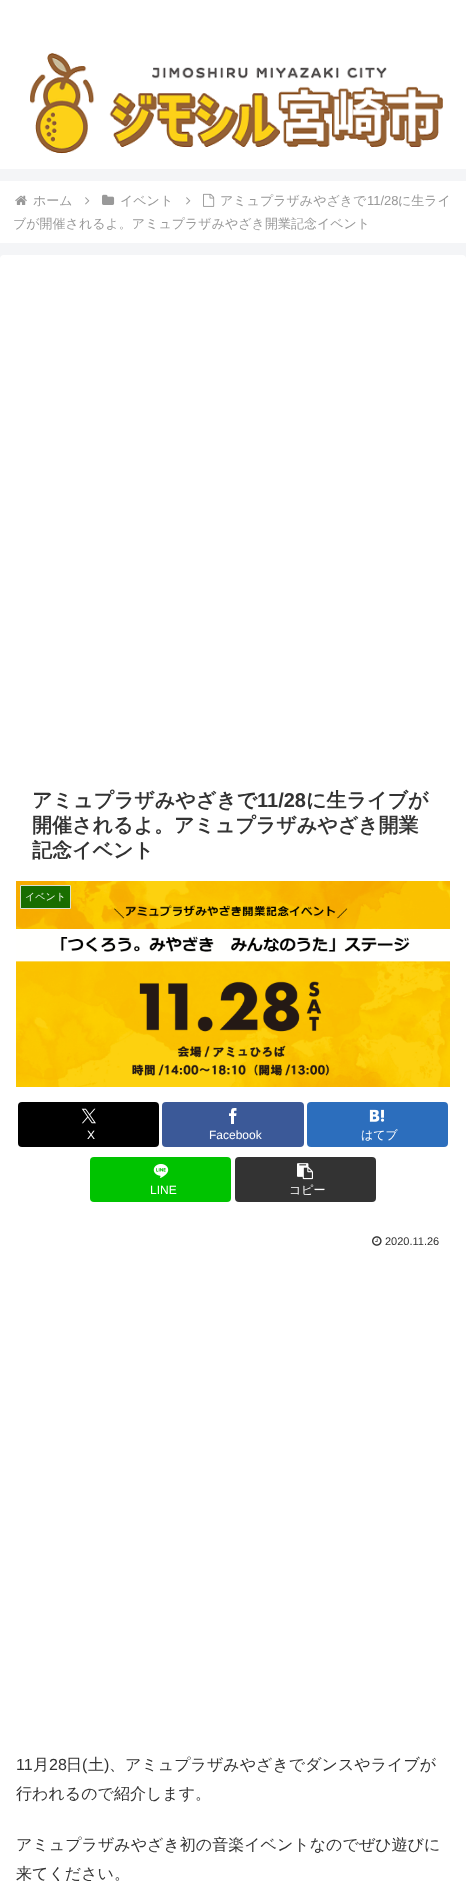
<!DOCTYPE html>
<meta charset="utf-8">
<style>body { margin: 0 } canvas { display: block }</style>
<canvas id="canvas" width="466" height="1881"></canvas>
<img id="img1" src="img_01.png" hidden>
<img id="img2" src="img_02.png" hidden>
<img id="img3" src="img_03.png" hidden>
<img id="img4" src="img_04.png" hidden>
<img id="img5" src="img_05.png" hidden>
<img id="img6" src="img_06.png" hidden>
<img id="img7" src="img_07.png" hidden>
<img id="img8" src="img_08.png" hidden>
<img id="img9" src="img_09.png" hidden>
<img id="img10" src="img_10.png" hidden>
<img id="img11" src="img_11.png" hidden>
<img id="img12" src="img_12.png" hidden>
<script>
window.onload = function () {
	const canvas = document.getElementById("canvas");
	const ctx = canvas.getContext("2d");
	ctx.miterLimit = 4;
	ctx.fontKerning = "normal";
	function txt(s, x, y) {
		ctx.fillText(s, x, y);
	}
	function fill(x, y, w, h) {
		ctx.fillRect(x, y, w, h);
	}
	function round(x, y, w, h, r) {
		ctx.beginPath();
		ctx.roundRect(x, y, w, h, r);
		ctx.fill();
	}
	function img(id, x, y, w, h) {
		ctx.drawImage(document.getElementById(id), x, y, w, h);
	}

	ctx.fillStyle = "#F4F5F7";
	fill(0, 0, 466, 1881);
	ctx.fillStyle = "#FFFFFF";
	fill(0, 0, 466, 169);
	img("img1", 30, 53, 413, 101);
	fill(0, 181, 466, 62);
	img("img2", 186, 197, 5, 8);
	img("img3", 203, 193, 12, 14);
	img("img4", 15, 195, 12, 10);
	img("img2", 85, 197, 5, 8);
	img("img5", 102, 194, 13, 11);
	round(0, 255, 466, 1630, 4);
	img("img6", 16, 881, 434, 206);
	ctx.fillStyle = "rgba(0, 102, 0, 0.9)";
	ctx.beginPath();
	ctx.rect(20.5, 885.5, 50, 23);
	ctx.fill();
	ctx.strokeStyle = "#D9E1D6";
	ctx.stroke();
	ctx.fillStyle = "#000000";
	round(18, 1102, 141, 45, 4);
	img("img7", 81, 1108, 15, 16);
	ctx.fillStyle = "#3B5998";
	round(162, 1102, 142, 45, 4);
	img("img8", 229, 1108, 8, 16);
	ctx.fillStyle = "#2C6EBD";
	round(307, 1102, 141, 45, 4);
	img("img9", 369, 1109, 16, 13);
	ctx.fillStyle = "#00C300";
	round(90, 1157, 141, 45, 4);
	img("img10", 153, 1164, 16, 14);
	ctx.fillStyle = "#333333";
	round(235, 1157, 141, 45, 4);
	img("img11", 297, 1163, 16, 17);
	img("img12", 372, 1236, 10, 10);
	ctx.font = "500 13px WenQuanYi Zen Hei";
	ctx.fillStyle = "#999999";
	txt("アミュプラザみやざきで", 220, 205);
	ctx.font = "13px Liberation Sans";
	txt("11/28", 367, 205);
	ctx.font = "500 13px WenQuanYi Zen Hei";
	txt("に生ライ", 398, 205);
	txt("ブが開催されるよ。アミュプラザみやざき開業記念イベント", 13, 228);
	txt("ホーム", 33, 205);
	txt("イベント", 120, 205);
	ctx.font = "bold 20px WenQuanYi Zen Hei";
	ctx.fillStyle = "#333333";
	txt("アミュプラザみやざきで", 32, 807);
	ctx.font = "bold 20px Liberation Sans";
	txt("11/28", 257, 807);
	ctx.font = "bold 20px WenQuanYi Zen Hei";
	txt("に生ライブが", 306, 807);
	txt("開催されるよ。アミュプラザみやざき開業", 32, 832);
	txt("記念イベント", 32, 857);
	ctx.font = "500 10px WenQuanYi Zen Hei";
	ctx.fillStyle = "#E8F0E6";
	txt("イベント", 25, 900);
	ctx.font = "12px Liberation Sans";
	ctx.fillStyle = "#FFFFFF";
	txt("X", 87, 1139);
	txt("Facebook", 209, 1139);
	ctx.font = "500 12px WenQuanYi Zen Hei";
	txt("はてブ", 361, 1139);
	ctx.font = "12px Liberation Sans";
	txt("LINE", 150, 1194);
	ctx.font = "500 12px WenQuanYi Zen Hei";
	txt("コピー", 289, 1194);
	ctx.font = "11px Liberation Sans";
	ctx.fillStyle = "#333333";
	txt("2020.11.26", 385, 1245);
	ctx.font = "16px Liberation Sans";
	txt("11", 16, 1770);
	ctx.font = "500 16px WenQuanYi Zen Hei";
	txt("月", 33, 1770);
	ctx.font = "16px Liberation Sans";
	txt("28", 49, 1770);
	ctx.font = "500 16px WenQuanYi Zen Hei";
	txt("日", 66, 1770);
	ctx.font = "16px Liberation Sans";
	txt("(", 82, 1770);
	ctx.font = "500 16px WenQuanYi Zen Hei";
	txt("土", 88, 1770);
	ctx.font = "16px Liberation Sans";
	txt(")", 104, 1770);
	ctx.font = "500 16px WenQuanYi Zen Hei";
	txt("、アミュプラザみやざきでダンスやライブが", 109, 1770);
	txt("行われるので紹介します。", 16, 1799);
	txt("アミュプラザみやざき初の音楽イベントなのでぜひ遊びに", 16, 1850);
	txt("来てください。", 16, 1879);
};
</script>
